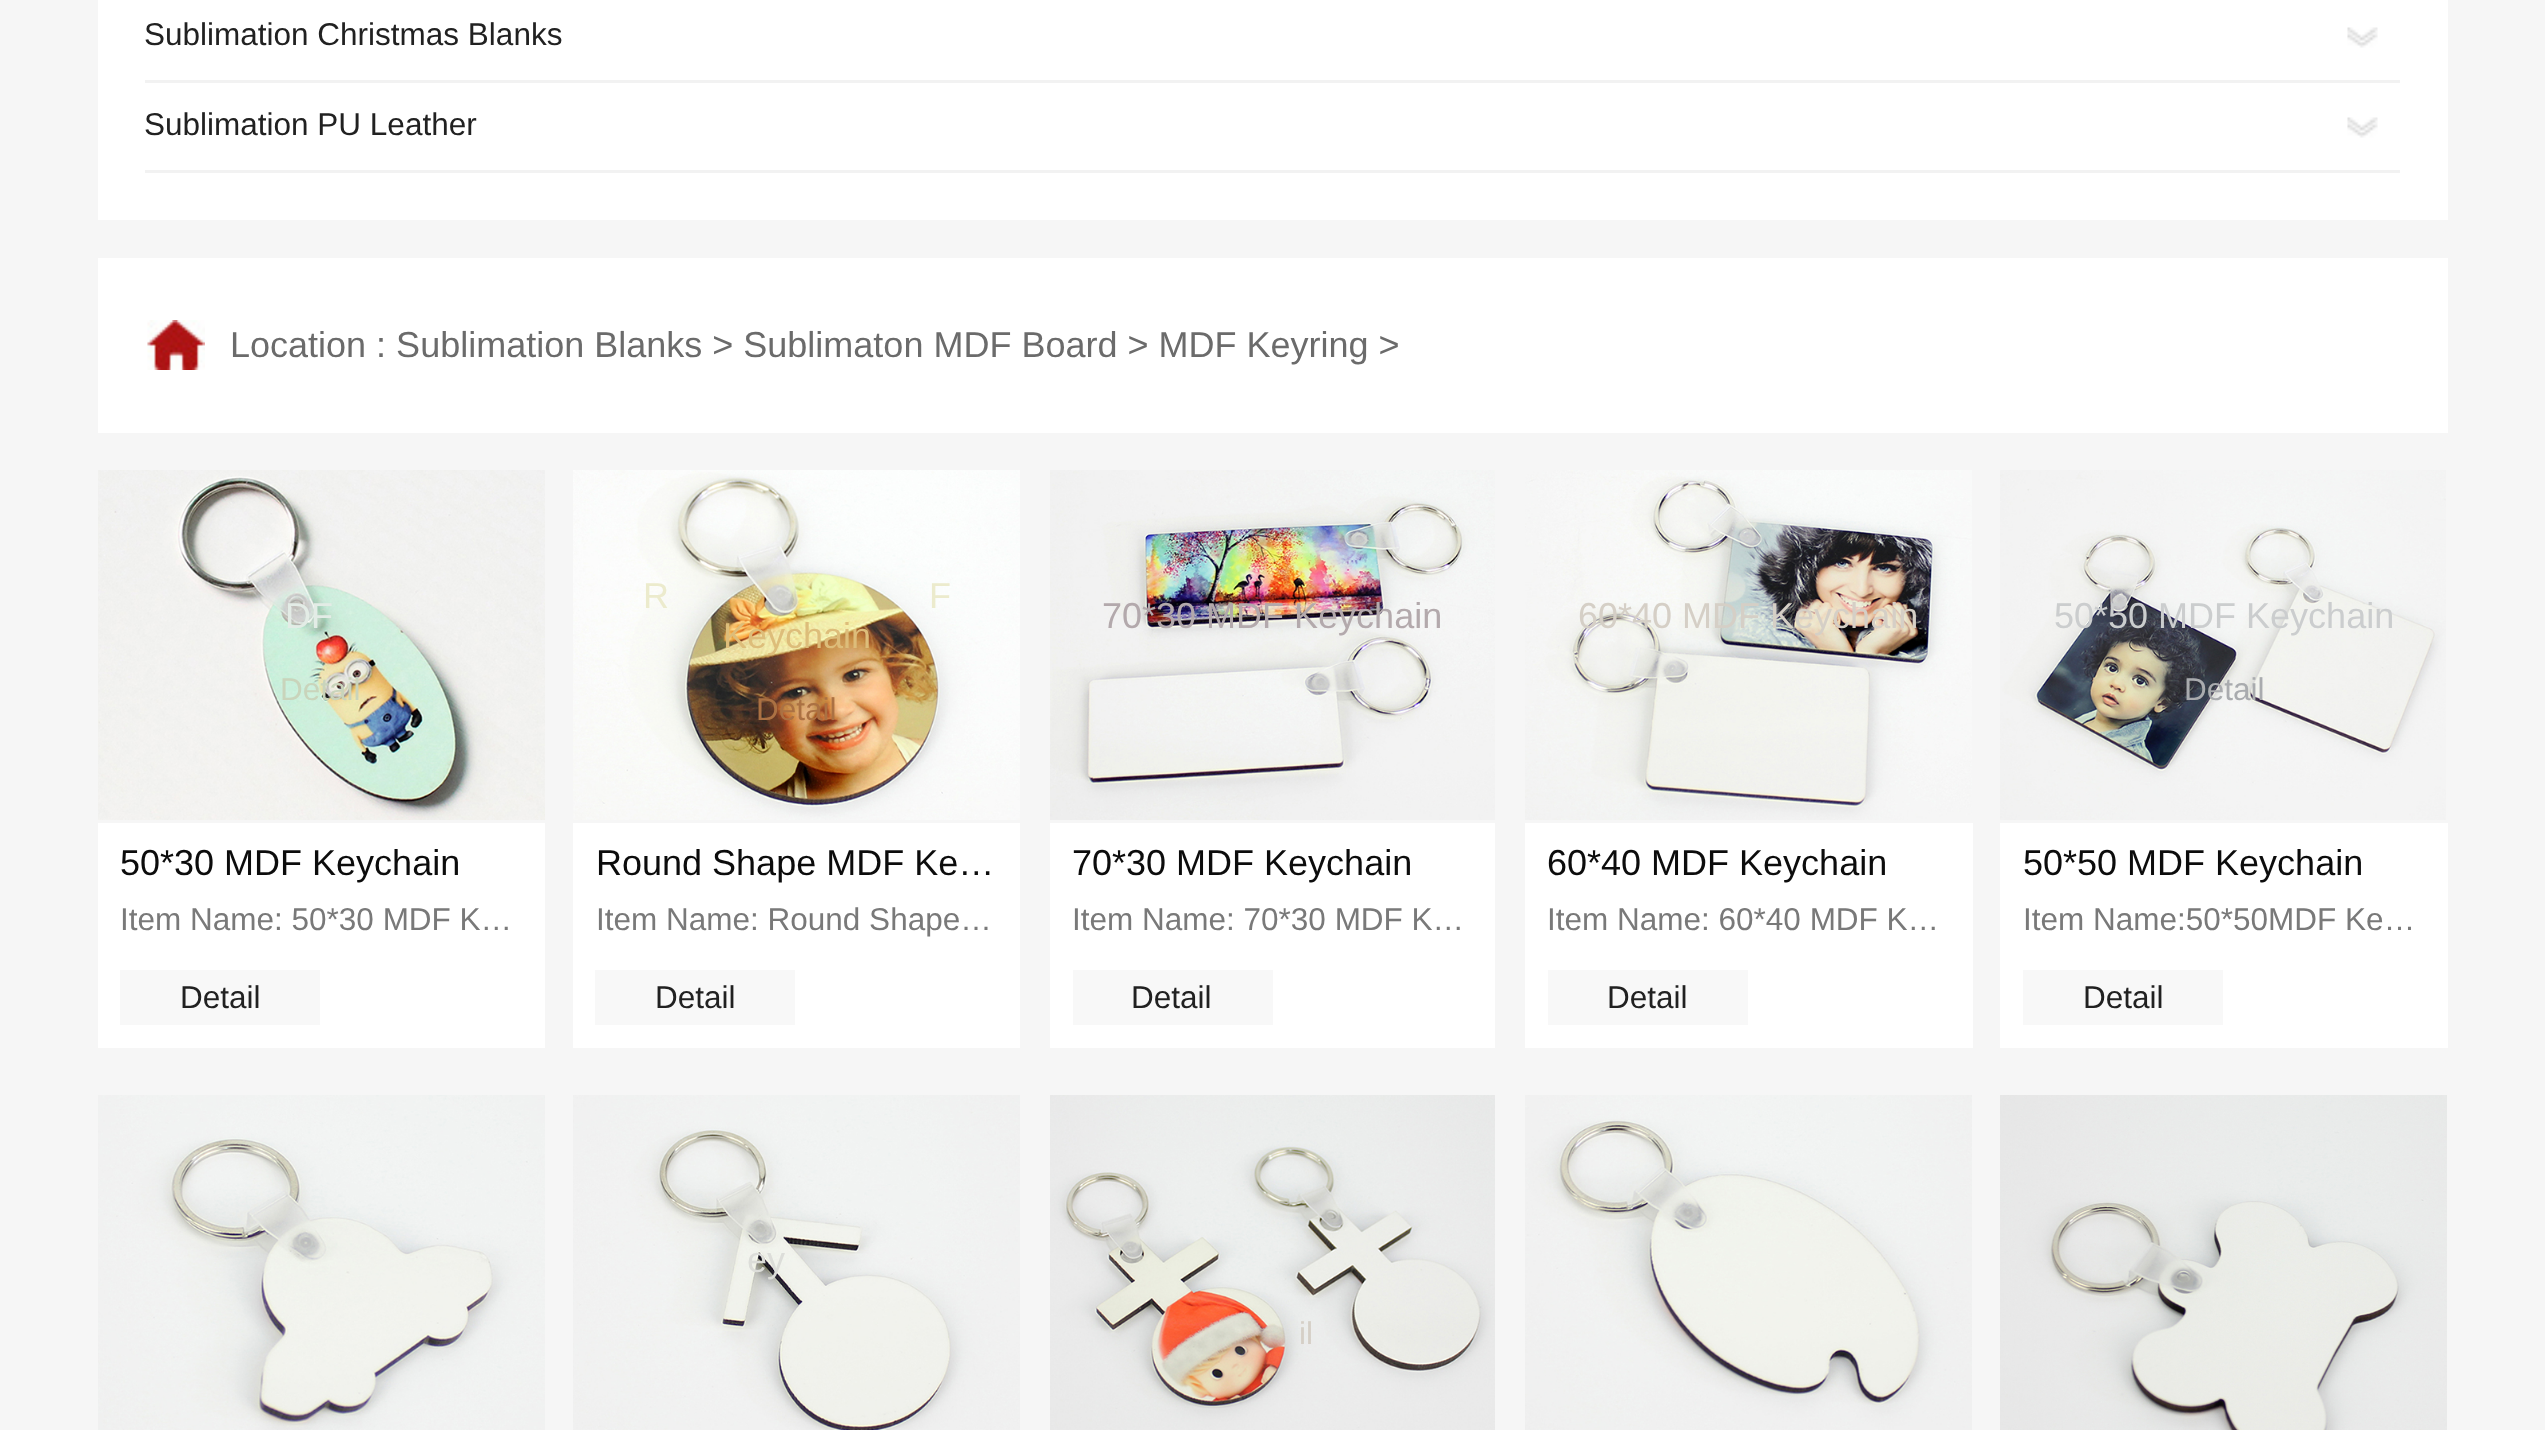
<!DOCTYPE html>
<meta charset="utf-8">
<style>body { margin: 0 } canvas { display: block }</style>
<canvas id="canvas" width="2545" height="1430"></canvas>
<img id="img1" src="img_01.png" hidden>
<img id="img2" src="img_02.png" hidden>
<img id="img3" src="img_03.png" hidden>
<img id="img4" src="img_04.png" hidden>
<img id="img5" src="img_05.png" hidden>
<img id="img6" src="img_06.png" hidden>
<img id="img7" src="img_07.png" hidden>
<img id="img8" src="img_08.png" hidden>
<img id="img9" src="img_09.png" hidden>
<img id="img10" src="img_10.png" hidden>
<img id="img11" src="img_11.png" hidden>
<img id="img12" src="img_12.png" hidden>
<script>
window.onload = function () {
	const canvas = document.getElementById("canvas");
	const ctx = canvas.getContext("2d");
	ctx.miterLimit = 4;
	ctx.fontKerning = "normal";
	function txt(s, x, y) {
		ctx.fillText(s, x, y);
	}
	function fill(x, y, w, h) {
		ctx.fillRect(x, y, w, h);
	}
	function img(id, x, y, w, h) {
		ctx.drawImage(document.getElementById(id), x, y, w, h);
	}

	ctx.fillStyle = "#F6F6F6";
	fill(0, 0, 2545, 1430);
	ctx.fillStyle = "#FFFFFF";
	fill(98, 0, 2350, 220);
	ctx.fillStyle = "#F2F2F2";
	fill(145, 80, 2255, 3);
	img("img1", 2347, 27, 31, 21);
	fill(145, 170, 2255, 3);
	img("img1", 2347, 117, 31, 21);
	ctx.fillStyle = "#FFFFFF";
	fill(98, 258, 2350, 175);
	img("img2", 147, 320, 58, 50);
	img("img3", 98, 470, 447, 350);
	fill(98, 823, 447, 225);
	ctx.fillStyle = "#F8F8F8";
	fill(120, 970, 200, 55);
	img("img4", 573, 470, 447, 350);
	ctx.fillStyle = "#FFFFFF";
	fill(573, 823, 447, 225);
	ctx.fillStyle = "#F8F8F8";
	fill(595, 970, 200, 55);
	img("img5", 1050, 470, 445, 350);
	ctx.fillStyle = "#FFFFFF";
	fill(1050, 823, 445, 225);
	ctx.fillStyle = "#F8F8F8";
	fill(1073, 970, 200, 55);
	img("img6", 1525, 470, 447, 350);
	ctx.fillStyle = "#FFFFFF";
	fill(1525, 823, 448, 225);
	ctx.fillStyle = "#F8F8F8";
	fill(1548, 970, 200, 55);
	img("img7", 2000, 470, 446, 350);
	ctx.fillStyle = "#FFFFFF";
	fill(2000, 823, 448, 225);
	ctx.fillStyle = "#F8F8F8";
	fill(2023, 970, 200, 55);
	img("img8", 98, 1095, 447, 335);
	img("img9", 573, 1095, 447, 335);
	img("img10", 1525, 1095, 447, 335);
	img("img11", 2000, 1095, 447, 335);
	img("img12", 1050, 1095, 445, 335);
	ctx.font = "31.5px Liberation Sans";
	ctx.fillStyle = "#212121";
	txt("Sublimation Christmas Blanks", 144, 45);
	txt("Sublimation PU Leather", 144, 135);
	ctx.font = "36px Liberation Sans";
	ctx.fillStyle = "#6B6B6B";
	txt("Location : Sublimation Blanks > Sublimaton MDF Board > MDF Keyring >", 230, 357);
	ctx.fillStyle = "#E3ECE6";
	txt("DF", 285, 628);
	ctx.font = "31.5px Liberation Sans";
	ctx.fillStyle = "#C9D4BB";
	txt("Detail", 280, 700);
	ctx.font = "36px Liberation Sans";
	ctx.fillStyle = "#0C0C0C";
	txt("50*30 MDF Keychain", 120, 875);
	ctx.font = "31.5px Liberation Sans";
	ctx.fillStyle = "#797979";
	txt("Item Name: 50*30 MDF K…", 120, 930);
	ctx.fillStyle = "#212121";
	txt("Detail", 180, 1008);
	ctx.font = "36px Liberation Sans";
	ctx.fillStyle = "#ECEBCD";
	txt("R", 643, 608);
	txt("F", 929, 608);
	ctx.fillStyle = "#DDBD7A";
	txt("Keychain", 723, 648);
	ctx.font = "31.5px Liberation Sans";
	ctx.fillStyle = "#AB7143";
	txt("Detail", 756, 720);
	ctx.font = "36px Liberation Sans";
	ctx.fillStyle = "#0C0C0C";
	txt("Round Shape MDF Ke…", 596, 875);
	ctx.font = "31.5px Liberation Sans";
	ctx.fillStyle = "#797979";
	txt("Item Name: Round Shape…", 596, 930);
	ctx.fillStyle = "#212121";
	txt("Detail", 655, 1008);
	ctx.font = "36px Liberation Sans";
	ctx.fillStyle = "#B3A9AC";
	txt("70*30 MDF Keychain", 1102, 628);
	ctx.fillStyle = "#0C0C0C";
	txt("70*30 MDF Keychain", 1072, 875);
	ctx.font = "31.5px Liberation Sans";
	ctx.fillStyle = "#797979";
	txt("Item Name: 70*30 MDF K…", 1072, 930);
	ctx.fillStyle = "#212121";
	txt("Detail", 1131, 1008);
	ctx.font = "36px Liberation Sans";
	ctx.fillStyle = "#D5CFC6";
	txt("60*40 MDF Keychain", 1578, 628);
	ctx.fillStyle = "#0C0C0C";
	txt("60*40 MDF Keychain", 1547, 875);
	ctx.font = "31.5px Liberation Sans";
	ctx.fillStyle = "#797979";
	txt("Item Name: 60*40 MDF K…", 1547, 930);
	ctx.fillStyle = "#212121";
	txt("Detail", 1607, 1008);
	ctx.font = "36px Liberation Sans";
	ctx.fillStyle = "#CBCDCE";
	txt("50*50 MDF Keychain", 2054, 628);
	ctx.font = "31.5px Liberation Sans";
	ctx.fillStyle = "#A9ABAE";
	txt("Detail", 2184, 700);
	ctx.font = "36px Liberation Sans";
	ctx.fillStyle = "#0C0C0C";
	txt("50*50 MDF Keychain", 2023, 875);
	ctx.font = "31.5px Liberation Sans";
	ctx.fillStyle = "#797979";
	txt("Item Name:50*50MDF Ke…", 2023, 930);
	ctx.fillStyle = "#212121";
	txt("Detail", 2083, 1008);
	ctx.font = "36px Liberation Sans";
	ctx.fillStyle = "#DCDDD9";
	txt("ey", 747, 1272);
	ctx.font = "31.5px Liberation Sans";
	ctx.fillStyle = "#D5CFC6";
	txt("il", 1299, 1344);
};
</script>
